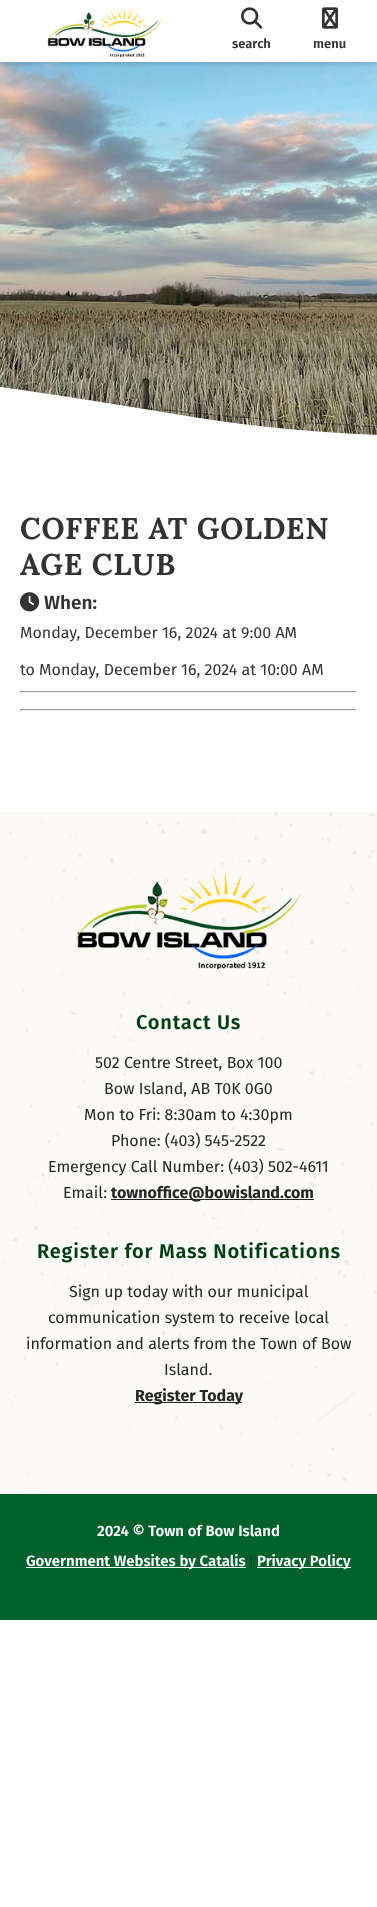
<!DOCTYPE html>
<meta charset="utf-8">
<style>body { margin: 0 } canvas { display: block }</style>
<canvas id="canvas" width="377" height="1907"></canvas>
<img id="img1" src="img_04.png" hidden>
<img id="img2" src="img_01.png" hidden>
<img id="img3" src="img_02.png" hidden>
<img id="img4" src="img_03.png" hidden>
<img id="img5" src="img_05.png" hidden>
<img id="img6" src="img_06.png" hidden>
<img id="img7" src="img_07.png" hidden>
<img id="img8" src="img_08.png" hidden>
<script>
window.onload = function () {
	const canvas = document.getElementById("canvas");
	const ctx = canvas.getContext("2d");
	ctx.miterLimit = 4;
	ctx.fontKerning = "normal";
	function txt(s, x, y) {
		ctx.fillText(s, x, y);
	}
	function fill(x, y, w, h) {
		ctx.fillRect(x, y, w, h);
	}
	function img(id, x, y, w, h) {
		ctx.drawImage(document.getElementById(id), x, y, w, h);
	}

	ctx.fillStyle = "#FFFFFF";
	fill(0, 0, 377, 1907);
	img("img1", 0, 62, 377, 373);
	ctx.save();
	ctx.beginPath();
	ctx.rect(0, 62, 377, 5);
	ctx.clip();
	ctx.fillStyle = "rgba(0, 0, 0, 0.25)";
	ctx.filter = "blur(3.5px)";
	ctx.beginPath();
	ctx.rect(0, 0, 377, 62);
	ctx.fill();
	ctx.filter = "none";
	ctx.restore();
	img("img2", 47, 7, 116, 50);
	img("img3", 241, 7, 22, 22);
	img("img4", 322, 7, 16, 22);
	img("img5", 0, 386, 377, 76);
	img("img6", 20, 592, 20, 20);
	ctx.fillStyle = "#9F9F9F";
	fill(20, 691, 337, 1);
	ctx.fillStyle = "#EEEEEE";
	fill(356, 691, 1, 2);
	fill(20, 692, 337, 1);
	ctx.fillStyle = "#9F9F9F";
	fill(20, 691, 1, 2);
	fill(20, 709, 337, 1);
	ctx.fillStyle = "#EEEEEE";
	fill(356, 709, 1, 2);
	fill(20, 710, 337, 1);
	ctx.fillStyle = "#9F9F9F";
	fill(20, 709, 1, 2);
	img("img7", 0, 812, 377, 682);
	img("img8", 76, 872, 225, 97);
	ctx.fillStyle = "#262626";
	fill(111, 1199, 203, 1);
	fill(135, 1402, 107, 1);
	ctx.fillStyle = "#00612A";
	fill(0, 1494, 377, 126);
	ctx.fillStyle = "#FFFFFF";
	fill(26, 1567, 220, 1);
	fill(257, 1567, 94, 1);
	ctx.font = "600 13px Fira Sans";
	ctx.fillStyle = "#333333";
	txt("search", 232, 48);
	txt("menu", 313, 48);
	ctx.letterSpacing = "0.8px";
	ctx.font = "bold 30px Lora";
	txt("COFFEE AT GOLDEN", 20, 539);
	txt("AGE CLUB", 20, 575);
	ctx.letterSpacing = "0px";
	ctx.font = "600 19px Fira Sans";
	txt("When:", 44, 609);
	ctx.font = "16px Fira Sans";
	txt("Monday, December 16, 2024 at 9:00 AM", 20, 638);
	txt("to Monday, December 16, 2024 at 10:00 AM", 20, 675);
	ctx.letterSpacing = "0.8px";
	ctx.font = "600 20px Fira Sans";
	ctx.fillStyle = "#003F15";
	txt("Contact Us", 136, 1029);
	ctx.letterSpacing = "0px";
	ctx.font = "16px Fira Sans";
	ctx.fillStyle = "#262626";
	txt("502 Centre Street, Box 100", 95, 1068);
	txt("Bow Island, AB T0K 0G0", 104, 1094);
	txt("Mon to Fri: 8:30am to 4:30pm", 84, 1120);
	txt("Phone: (403) 545-2522", 111, 1146);
	txt("Emergency Call Number: (403) 502-4611", 48, 1172);
	txt("Email:", 63, 1198);
	ctx.font = "bold 16px Fira Sans";
	txt("townoffice@bowisland.com", 111, 1198);
	ctx.letterSpacing = "0.8px";
	ctx.font = "600 20px Fira Sans";
	ctx.fillStyle = "#003F15";
	txt("Register for Mass Notifications", 37, 1258);
	ctx.letterSpacing = "0px";
	ctx.font = "16px Fira Sans";
	ctx.fillStyle = "#262626";
	txt("Sign up today with our municipal", 69, 1297);
	txt("communication system to receive local", 48, 1323);
	txt("information and alerts from the Town of Bow", 26, 1349);
	txt("Island.", 164, 1375);
	ctx.font = "bold 16px Fira Sans";
	txt("Register Today", 135, 1401);
	ctx.font = "600 15px Fira Sans";
	ctx.fillStyle = "#FFFFFF";
	txt("2024 © Town of Bow Island", 97, 1536);
	txt("Government Websites by Catalis", 26, 1566);
	ctx.font = "12px Fira Sans";
	ctx.fillStyle = "#262626";
	txt("|", 249, 1566);
	ctx.font = "600 15px Fira Sans";
	ctx.fillStyle = "#FFFFFF";
	txt("Privacy Policy", 257, 1566);
};
</script>
